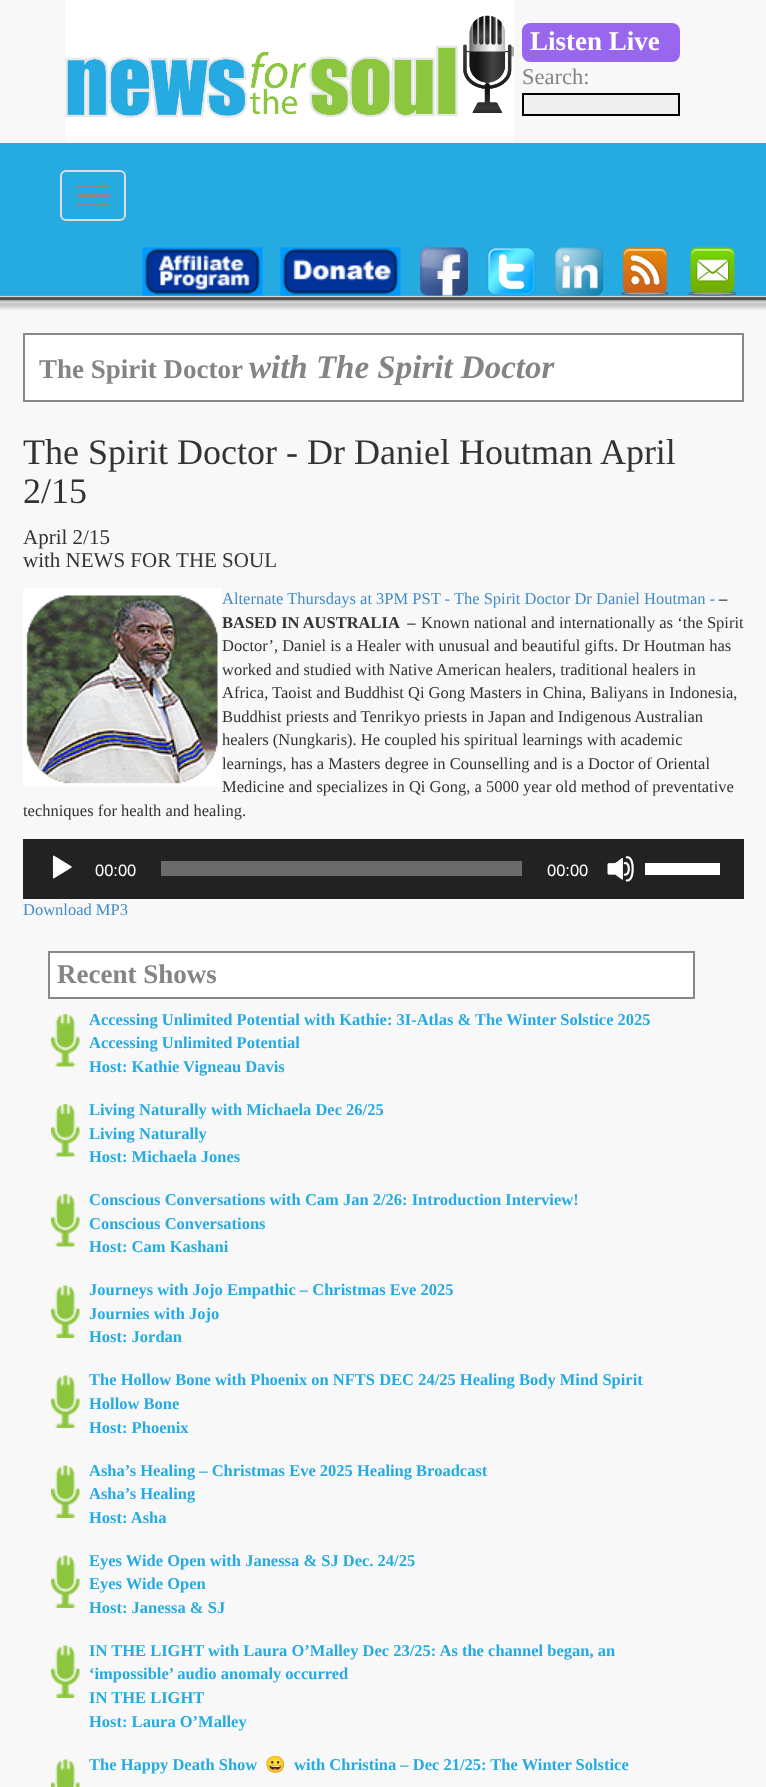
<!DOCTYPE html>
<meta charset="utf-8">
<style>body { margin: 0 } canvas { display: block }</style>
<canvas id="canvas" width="766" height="1787"></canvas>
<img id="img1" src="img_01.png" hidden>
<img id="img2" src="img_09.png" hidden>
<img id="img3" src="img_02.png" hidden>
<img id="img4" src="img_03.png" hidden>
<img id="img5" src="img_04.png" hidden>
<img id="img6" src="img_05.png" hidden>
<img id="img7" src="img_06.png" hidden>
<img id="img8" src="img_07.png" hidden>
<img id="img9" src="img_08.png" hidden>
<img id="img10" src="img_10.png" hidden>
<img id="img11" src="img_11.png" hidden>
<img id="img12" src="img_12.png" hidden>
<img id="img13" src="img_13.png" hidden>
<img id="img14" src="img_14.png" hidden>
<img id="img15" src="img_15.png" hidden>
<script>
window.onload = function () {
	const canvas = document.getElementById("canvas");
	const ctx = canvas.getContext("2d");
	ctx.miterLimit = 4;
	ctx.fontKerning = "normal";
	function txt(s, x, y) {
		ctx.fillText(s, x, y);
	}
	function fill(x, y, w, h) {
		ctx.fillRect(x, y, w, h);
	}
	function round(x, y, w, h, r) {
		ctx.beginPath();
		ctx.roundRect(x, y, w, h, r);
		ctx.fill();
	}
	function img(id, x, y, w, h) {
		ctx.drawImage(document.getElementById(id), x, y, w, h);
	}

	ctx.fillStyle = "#F8F8F8";
	fill(0, 0, 766, 1787);
	img("img1", 65, 0, 449, 142);
	ctx.fillStyle = "#9966EE";
	round(522, 23, 158, 39, 8);
	ctx.fillStyle = "#EFEFEF";
	ctx.beginPath();
	ctx.rect(523, 94, 156, 21);
	ctx.fill();
	ctx.strokeStyle = "#000000";
	ctx.lineWidth = 2;
	ctx.stroke();
	ctx.fillStyle = "#25AAE2";
	fill(0, 143, 766, 153);
	ctx.beginPath();
	ctx.roundRect(61, 171, 64, 49, 5);
	ctx.strokeStyle = "#DDDDDD";
	ctx.stroke();
	ctx.fillStyle = "#888888";
	round(77, 185, 33, 3, 1.5);
	round(77, 194, 33, 3, 1.5);
	round(77, 203, 33, 3, 1.5);
	img("img2", 0, 295, 766, 15);
	img("img3", 142, 247, 121, 49);
	img("img4", 280, 247, 121, 49);
	img("img5", 420, 247, 48, 49);
	img("img6", 487, 247, 49, 49);
	img("img7", 555, 247, 48, 49);
	img("img8", 621, 247, 48, 49);
	img("img9", 688, 247, 49, 49);
	ctx.fillStyle = "#FFFFFF";
	ctx.beginPath();
	ctx.rect(24, 334, 719, 67);
	ctx.fill();
	ctx.strokeStyle = "#888888";
	ctx.stroke();
	img("img10", 23, 588, 199, 199);
	ctx.fillStyle = "#222222";
	fill(23, 839, 721, 60);
	img("img11", 52, 855, 20, 24);
	ctx.fillStyle = "#6B6B6B";
	fill(161, 861, 361, 15);
	img("img12", 607, 856, 27, 26);
	ctx.fillStyle = "#FFFFFF";
	fill(645, 863, 75, 12);
	ctx.beginPath();
	ctx.rect(49, 952, 645, 46);
	ctx.fill();
	ctx.stroke();
	img("img13", 51, 1014, 29, 53);
	img("img13", 51, 1104, 29, 53);
	img("img13", 51, 1194, 29, 53);
	img("img14", 51, 1285, 29, 53);
	img("img14", 51, 1375, 29, 53);
	img("img14", 51, 1465, 29, 53);
	img("img14", 51, 1555, 29, 53);
	img("img14", 51, 1645, 29, 53);
	img("img15", 51, 1759, 29, 28);
	ctx.font = "bold 27px Liberation Serif";
	txt("Listen Live", 530, 50);
	ctx.font = "22.5px Liberation Serif";
	ctx.fillStyle = "#848484";
	txt("Search:", 522, 84);
	ctx.font = "bold 27px Liberation Serif";
	txt("The Spirit Doctor", 39, 378);
	ctx.font = "italic bold 33px Liberation Serif";
	txt("with The Spirit Doctor", 249, 378);
	ctx.font = "36px Liberation Serif";
	ctx.fillStyle = "#333333";
	txt("The Spirit Doctor - Dr Daniel Houtman April", 23, 464);
	txt("2/15", 23, 503);
	ctx.font = "21px Liberation Serif";
	txt("April 2/15", 23, 544);
	txt("with NEWS FOR THE SOUL", 23, 567);
	ctx.font = "16.5px Liberation Serif";
	ctx.fillStyle = "#428BCA";
	txt("Alternate Thursdays at 3PM PST - The Spirit Doctor Dr Daniel Houtman -", 222, 604);
	ctx.font = "bold 16.5px Liberation Serif";
	ctx.fillStyle = "#333333";
	txt("–", 719, 604);
	txt("BASED IN AUSTRALIA  –", 222, 628);
	ctx.font = "16.5px Liberation Serif";
	txt("Known national and internationally as ‘the Spirit", 421, 628);
	txt("Doctor’, Daniel is a Healer with unusual and beautiful gifts. Dr Houtman has", 222, 651);
	txt("worked and studied with Native American healers, traditional healers in", 222, 675);
	txt("Africa, Taoist and Buddhist Qi Gong Masters in China, Baliyans in Indonesia,", 222, 698);
	txt("Buddhist priests and Tenrikyo priests in Japan and Indigenous Australian", 222, 722);
	txt("healers (Nungkaris). He coupled his spiritual learnings with academic", 222, 745);
	txt("learnings, has a Masters degree in Counselling and is a Doctor of Oriental", 222, 769);
	txt("Medicine and specializes in Qi Gong, a 5000 year old method of preventative", 222, 792);
	txt("techniques for health and healing.", 23, 816);
	ctx.font = "16.5px Liberation Sans";
	ctx.fillStyle = "#FFFFFF";
	txt("00:00", 95, 876);
	txt("00:00", 547, 876);
	ctx.font = "16.5px Liberation Serif";
	ctx.fillStyle = "#428BCA";
	txt("Download MP3", 23, 915);
	ctx.font = "bold 27px Liberation Serif";
	ctx.fillStyle = "#848484";
	txt("Recent Shows", 57, 983);
	ctx.font = "bold 16.5px Liberation Serif";
	ctx.fillStyle = "#25AAE2";
	txt("Accessing Unlimited Potential with Kathie: 3I-Atlas & The Winter Solstice 2025", 89, 1025);
	txt("Accessing Unlimited Potential", 89, 1048);
	txt("Host: Kathie Vigneau Davis", 89, 1072);
	txt("Living Naturally with Michaela Dec 26/25", 89, 1115);
	txt("Living Naturally", 89, 1139);
	txt("Host: Michaela Jones", 89, 1162);
	txt("Conscious Conversations with Cam Jan 2/26: Introduction Interview!", 89, 1205);
	txt("Conscious Conversations", 89, 1229);
	txt("Host: Cam Kashani", 89, 1252);
	txt("Journeys with Jojo Empathic – Christmas Eve 2025", 89, 1295);
	txt("Journies with Jojo", 89, 1319);
	txt("Host: Jordan", 89, 1342);
	txt("The Hollow Bone with Phoenix on NFTS DEC 24/25 Healing Body Mind Spirit", 89, 1385);
	txt("Hollow Bone", 89, 1409);
	txt("Host: Phoenix", 89, 1433);
	txt("Asha’s Healing – Christmas Eve 2025 Healing Broadcast", 89, 1476);
	txt("Asha’s Healing", 89, 1499);
	txt("Host: Asha", 89, 1523);
	txt("Eyes Wide Open with Janessa & SJ Dec. 24/25", 89, 1566);
	txt("Eyes Wide Open", 89, 1589);
	txt("Host: Janessa & SJ", 89, 1613);
	txt("IN THE LIGHT with Laura O’Malley Dec 23/25: As the channel began, an", 89, 1656);
	txt("‘impossible’ audio anomaly occurred", 89, 1679);
	txt("IN THE LIGHT", 89, 1703);
	txt("Host: Laura O’Malley", 89, 1727);
	txt("The Happy Death Show", 89, 1770);
	ctx.font = "bold 16.5px Noto Color Emoji";
	txt("😀", 265, 1770);
	ctx.font = "bold 16.5px Liberation Serif";
	txt("with Christina – Dec 21/25: The Winter Solstice", 294, 1770);
};
</script>
